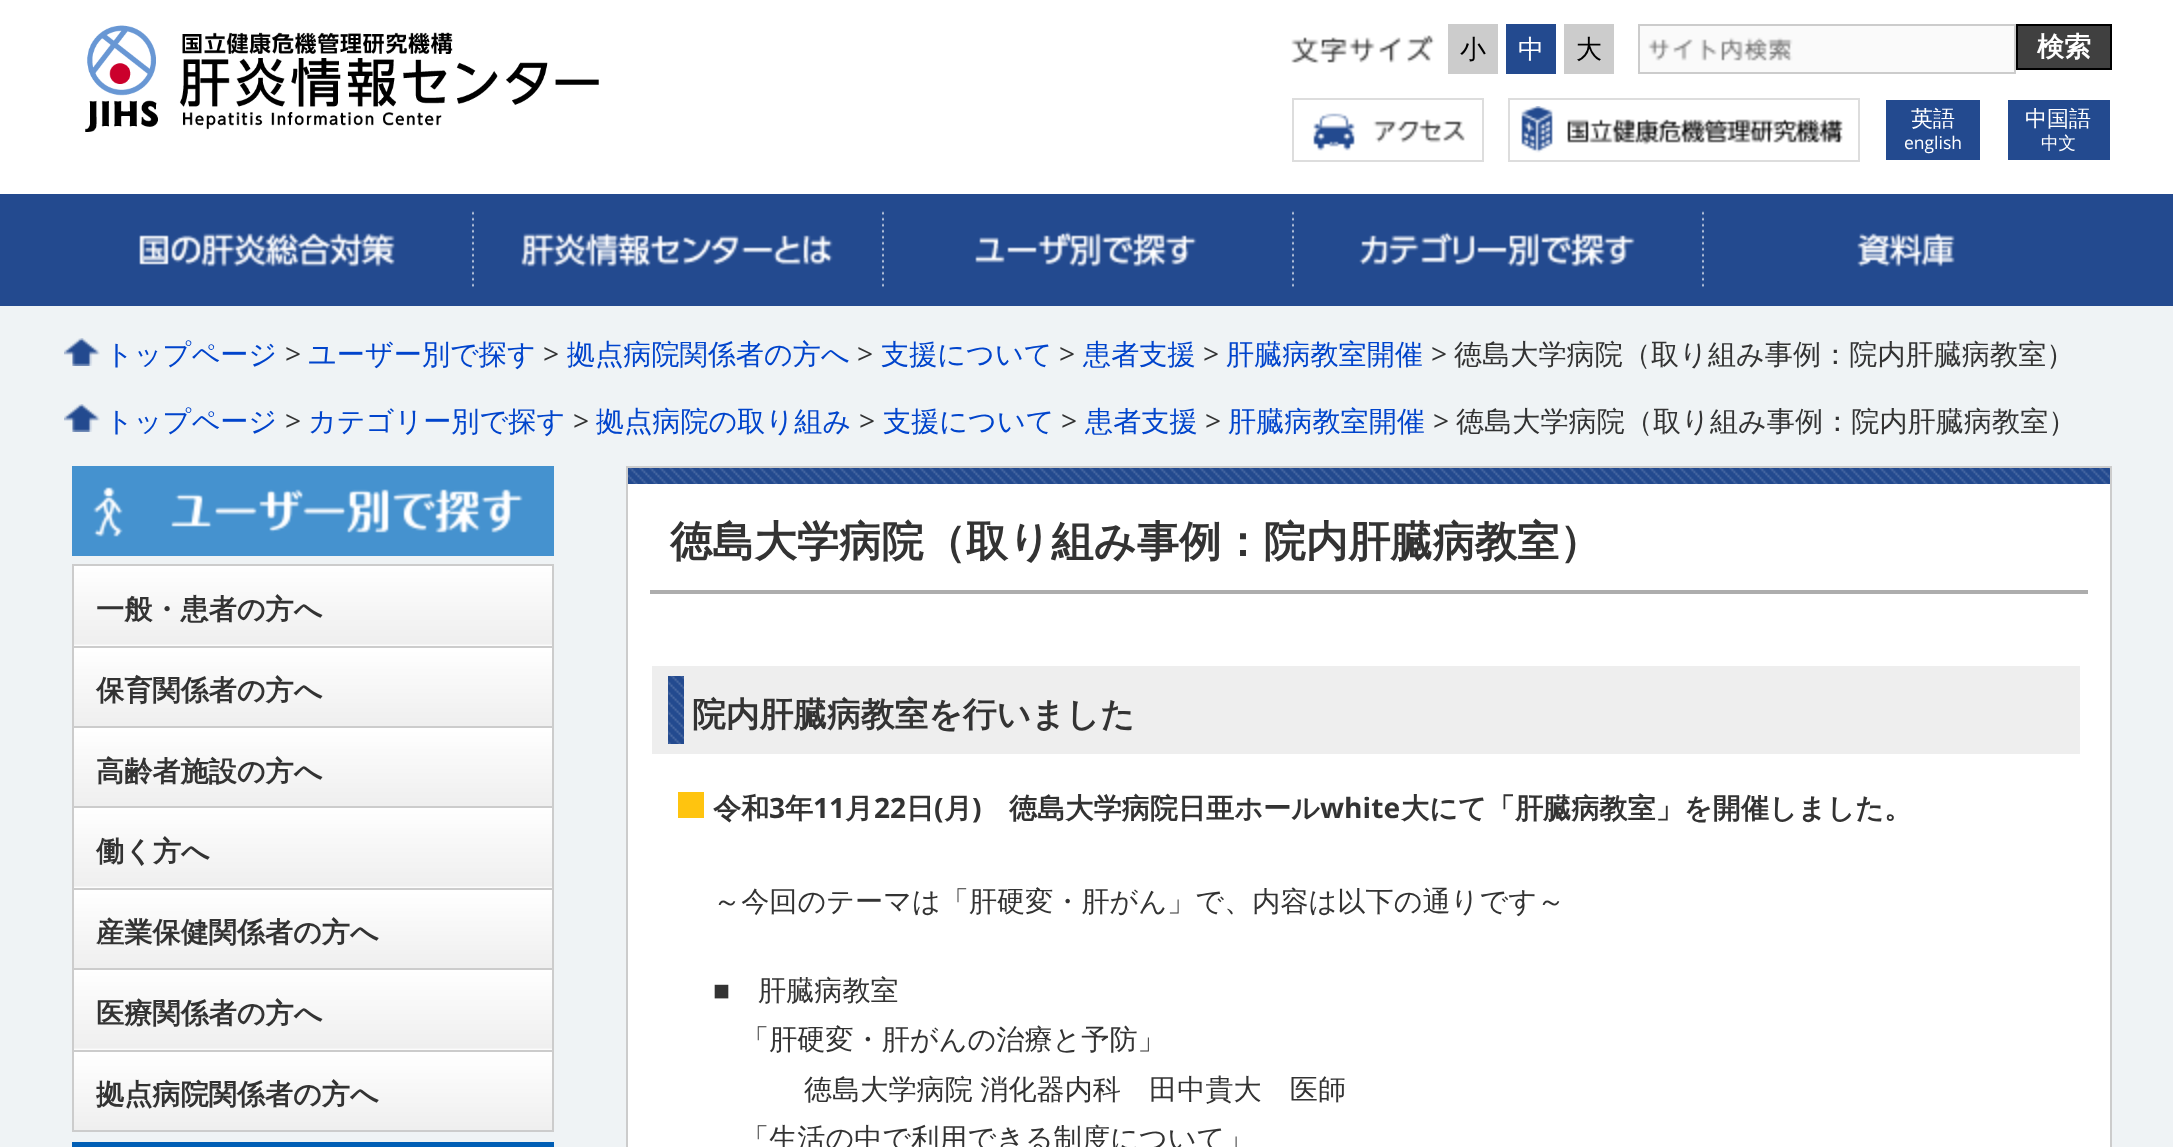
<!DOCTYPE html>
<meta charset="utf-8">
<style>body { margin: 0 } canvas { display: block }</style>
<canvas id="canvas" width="2173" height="1147"></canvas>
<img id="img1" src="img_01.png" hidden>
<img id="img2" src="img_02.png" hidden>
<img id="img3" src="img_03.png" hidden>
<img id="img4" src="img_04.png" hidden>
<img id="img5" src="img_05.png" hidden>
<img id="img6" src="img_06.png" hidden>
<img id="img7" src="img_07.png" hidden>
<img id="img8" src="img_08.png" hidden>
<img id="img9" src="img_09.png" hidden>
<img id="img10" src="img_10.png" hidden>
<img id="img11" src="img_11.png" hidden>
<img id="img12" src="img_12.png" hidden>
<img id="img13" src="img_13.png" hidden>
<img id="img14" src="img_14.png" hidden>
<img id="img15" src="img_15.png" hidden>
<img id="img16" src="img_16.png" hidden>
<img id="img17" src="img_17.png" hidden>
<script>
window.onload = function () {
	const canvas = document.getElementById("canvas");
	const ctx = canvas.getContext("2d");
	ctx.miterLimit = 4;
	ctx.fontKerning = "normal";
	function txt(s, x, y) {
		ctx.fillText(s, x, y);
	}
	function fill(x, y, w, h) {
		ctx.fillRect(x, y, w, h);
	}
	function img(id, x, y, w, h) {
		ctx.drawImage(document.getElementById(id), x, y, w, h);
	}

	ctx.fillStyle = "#EFF3F5";
	fill(0, 0, 2173, 1147);
	ctx.fillStyle = "#FFFFFF";
	fill(0, 0, 2173, 194);
	img("img1", 85, 25, 514, 107);
	img("img2", 1291, 35, 144, 29);
	ctx.fillStyle = "#CCCCCC";
	fill(1448, 24, 50, 50);
	ctx.fillStyle = "#234A8F";
	fill(1506, 24, 50, 50);
	ctx.fillStyle = "#CCCCCC";
	fill(1564, 24, 50, 50);
	ctx.fillStyle = "#FAFAFA";
	fill(1640, 26, 374, 46);
	img("img3", 1648, 37, 145, 24);
	ctx.strokeStyle = "#CCCCCC";
	ctx.lineWidth = 2;
	ctx.strokeRect(1639, 25, 376, 48);
	ctx.fillStyle = "#404040";
	ctx.beginPath();
	ctx.rect(2017, 25, 94, 44);
	ctx.fill();
	ctx.strokeStyle = "#000000";
	ctx.stroke();
	img("img4", 1313, 113, 152, 38);
	ctx.strokeStyle = "#DDDDDD";
	ctx.strokeRect(1293, 99, 190, 62);
	img("img5", 1521, 106, 322, 47);
	ctx.strokeRect(1509, 99, 350, 62);
	ctx.fillStyle = "#234A8F";
	fill(1886, 100, 94, 60);
	fill(2008, 100, 102, 60);
	fill(0, 194, 2173, 112);
	img("img6", 139, 233, 256, 34);
	img("img7", 521, 233, 312, 34);
	img("img8", 472, 211, 2, 76);
	img("img9", 975, 231, 222, 36);
	img("img8", 882, 211, 2, 76);
	img("img10", 1359, 231, 276, 36);
	img("img8", 1292, 211, 2, 76);
	img("img11", 1857, 233, 98, 34);
	img("img8", 1702, 211, 2, 76);
	img("img12", 64, 338, 36, 28);
	img("img12", 64, 404, 36, 28);
	ctx.fillStyle = "#4592CF";
	fill(72, 466, 482, 90);
	img("img13", 93, 487, 430, 50);
	ctx.fillStyle = "#CCCCCC";
	fill(72, 564, 482, 2);
	fill(552, 564, 2, 568);
	fill(72, 564, 2, 568);
	img("img14", 74, 566, 478, 80);
	fill(74, 646, 478, 2);
	img("img15", 74, 648, 478, 78);
	fill(74, 726, 478, 2);
	img("img15", 74, 728, 478, 78);
	fill(74, 806, 478, 2);
	img("img14", 74, 808, 478, 80);
	fill(74, 888, 478, 2);
	img("img15", 74, 890, 478, 78);
	fill(74, 968, 478, 2);
	img("img14", 74, 970, 478, 80);
	fill(74, 1050, 478, 2);
	img("img15", 74, 1052, 478, 78);
	fill(74, 1130, 478, 2);
	ctx.fillStyle = "#005EB5";
	fill(72, 1142, 482, 5);
	ctx.fillStyle = "#CCCCCC";
	fill(626, 466, 1486, 2);
	fill(2110, 466, 2, 166);
	fill(626, 466, 2, 166);
	ctx.fillStyle = "#234A8F";
	fill(628, 468, 1482, 16);
	img("img16", 628, 468, 1482, 16);
	ctx.fillStyle = "#FFFFFF";
	fill(628, 484, 1482, 663);
	ctx.fillStyle = "#ADADAD";
	fill(650, 590, 1438, 4);
	ctx.fillStyle = "#CCCCCC";
	fill(2110, 632, 2, 515);
	fill(626, 632, 2, 515);
	ctx.fillStyle = "#EEEEEE";
	fill(652, 666, 1428, 88);
	ctx.fillStyle = "#234A8F";
	fill(668, 676, 16, 68);
	img("img17", 668, 676, 16, 68);
	ctx.fillStyle = "#FFC40F";
	fill(678, 792, 26, 26);
	ctx.font = "500 26px WenQuanYi Zen Hei";
	ctx.fillStyle = "#000000";
	txt("小", 1460, 58);
	ctx.fillStyle = "#FFFFFF";
	txt("中", 1518, 58);
	ctx.fillStyle = "#000000";
	txt("大", 1576, 58);
	ctx.font = "bold 27px WenQuanYi Zen Hei";
	ctx.fillStyle = "#FFFFFF";
	txt("検索", 2037, 56);
	ctx.font = "500 22px WenQuanYi Zen Hei";
	txt("英語", 1911, 126);
	ctx.font = "17.5px Open Sans";
	txt("english", 1904, 149);
	ctx.font = "500 22px WenQuanYi Zen Hei";
	txt("中国語", 2025, 126);
	ctx.font = "500 17.5px WenQuanYi Zen Hei";
	txt("中文", 2041, 149);
	ctx.font = "500 28.15px WenQuanYi Zen Hei";
	ctx.fillStyle = "#0044CC";
	txt("トップページ", 105, 364);
	ctx.font = "28.15px Open Sans";
	ctx.fillStyle = "#333333";
	txt(">", 285, 364);
	ctx.font = "500 28.15px WenQuanYi Zen Hei";
	ctx.fillStyle = "#0044CC";
	txt("ユーザー別で探す", 308, 364);
	ctx.font = "28.15px Open Sans";
	ctx.fillStyle = "#333333";
	txt(">", 543, 364);
	ctx.font = "500 28.15px WenQuanYi Zen Hei";
	ctx.fillStyle = "#0044CC";
	txt("拠点病院関係者の方へ", 567, 364);
	ctx.font = "28.15px Open Sans";
	ctx.fillStyle = "#333333";
	txt(">", 857, 364);
	ctx.font = "500 28.15px WenQuanYi Zen Hei";
	ctx.fillStyle = "#0044CC";
	txt("支援について", 881, 364);
	ctx.font = "28.15px Open Sans";
	ctx.fillStyle = "#333333";
	txt(">", 1059, 364);
	ctx.font = "500 28.15px WenQuanYi Zen Hei";
	ctx.fillStyle = "#0044CC";
	txt("患者支援", 1083, 364);
	ctx.font = "28.15px Open Sans";
	ctx.fillStyle = "#333333";
	txt(">", 1203, 364);
	ctx.font = "500 28.15px WenQuanYi Zen Hei";
	ctx.fillStyle = "#0044CC";
	txt("肝臓病教室開催", 1226, 364);
	ctx.font = "28.15px Open Sans";
	ctx.fillStyle = "#333333";
	txt(">", 1431, 364);
	ctx.font = "500 28.15px WenQuanYi Zen Hei";
	txt("徳島大学病院（取り組み事例：院内肝臓病教室）", 1454, 364);
	ctx.fillStyle = "#0044CC";
	txt("トップページ", 105, 431);
	ctx.font = "28.15px Open Sans";
	ctx.fillStyle = "#333333";
	txt(">", 285, 431);
	ctx.font = "500 28.15px WenQuanYi Zen Hei";
	ctx.fillStyle = "#0044CC";
	txt("カテゴリー別で探す", 308, 431);
	ctx.font = "28.15px Open Sans";
	ctx.fillStyle = "#333333";
	txt(">", 573, 431);
	ctx.font = "500 28.15px WenQuanYi Zen Hei";
	ctx.fillStyle = "#0044CC";
	txt("拠点病院の取り組み", 596, 431);
	ctx.font = "28.15px Open Sans";
	ctx.fillStyle = "#333333";
	txt(">", 859, 431);
	ctx.font = "500 28.15px WenQuanYi Zen Hei";
	ctx.fillStyle = "#0044CC";
	txt("支援について", 883, 431);
	ctx.font = "28.15px Open Sans";
	ctx.fillStyle = "#333333";
	txt(">", 1061, 431);
	ctx.font = "500 28.15px WenQuanYi Zen Hei";
	ctx.fillStyle = "#0044CC";
	txt("患者支援", 1085, 431);
	ctx.font = "28.15px Open Sans";
	ctx.fillStyle = "#333333";
	txt(">", 1205, 431);
	ctx.font = "500 28.15px WenQuanYi Zen Hei";
	ctx.fillStyle = "#0044CC";
	txt("肝臓病教室開催", 1228, 431);
	ctx.font = "28.15px Open Sans";
	ctx.fillStyle = "#333333";
	txt(">", 1433, 431);
	ctx.font = "500 28.15px WenQuanYi Zen Hei";
	txt("徳島大学病院（取り組み事例：院内肝臓病教室）", 1456, 431);
	ctx.font = "bold 28.15px WenQuanYi Zen Hei";
	txt("一般・患者の方へ", 96, 619);
	txt("保育関係者の方へ", 96, 700);
	txt("高齢者施設の方へ", 96, 781);
	txt("働く方へ", 96, 861);
	txt("産業保健関係者の方へ", 96, 942);
	txt("医療関係者の方へ", 96, 1023);
	txt("拠点病院関係者の方へ", 96, 1104);
	ctx.font = "bold 42.25px WenQuanYi Zen Hei";
	txt("徳島大学病院（取り組み事例：院内肝臓病教室）", 670, 556);
	ctx.font = "bold 33.75px WenQuanYi Zen Hei";
	txt("院内肝臓病教室を行いました", 692, 726);
	ctx.font = "bold 28.15px WenQuanYi Zen Hei";
	txt("令和", 713, 818);
	ctx.font = "bold 28.15px Open Sans";
	txt("3", 769, 818);
	ctx.font = "bold 28.15px WenQuanYi Zen Hei";
	txt("年", 785, 818);
	ctx.font = "bold 28.15px Open Sans";
	txt("11", 813, 818);
	ctx.font = "bold 28.15px WenQuanYi Zen Hei";
	txt("月", 845, 818);
	ctx.font = "bold 28.15px Open Sans";
	txt("22", 874, 818);
	ctx.font = "bold 28.15px WenQuanYi Zen Hei";
	txt("日", 906, 818);
	ctx.font = "bold 28.15px Open Sans";
	txt("(", 934, 818);
	ctx.font = "bold 28.15px WenQuanYi Zen Hei";
	txt("月", 944, 818);
	ctx.font = "bold 28.15px Open Sans";
	txt(")", 972, 818);
	ctx.font = "bold 28.15px WenQuanYi Zen Hei";
	txt("徳島大学病院日亜ホール", 1009, 818);
	ctx.font = "bold 28.15px Open Sans";
	txt("white", 1320, 818);
	ctx.font = "bold 28.15px WenQuanYi Zen Hei";
	txt("大にて「肝臓病教室」を開催しました。", 1401, 818);
	ctx.font = "500 28.15px WenQuanYi Zen Hei";
	txt("～今回のテーマは「肝硬変・肝がん」で、内容は以下の通りです～", 713, 911);
	ctx.font = "28.15px Liberation Sans";
	txt("■", 713, 1000);
	ctx.font = "500 28.15px WenQuanYi Zen Hei";
	txt("肝臓病教室", 758, 1000);
	txt("「肝硬変・肝がんの治療と予防」", 741, 1049);
	ctx.wordSpacing = "-1px";
	txt("徳島大学病院 消化器内科　田中貴大　医師", 804, 1099);
	ctx.wordSpacing = "0px";
	txt("「生活の中で利用できる制度について」", 741, 1148);
};
</script>
